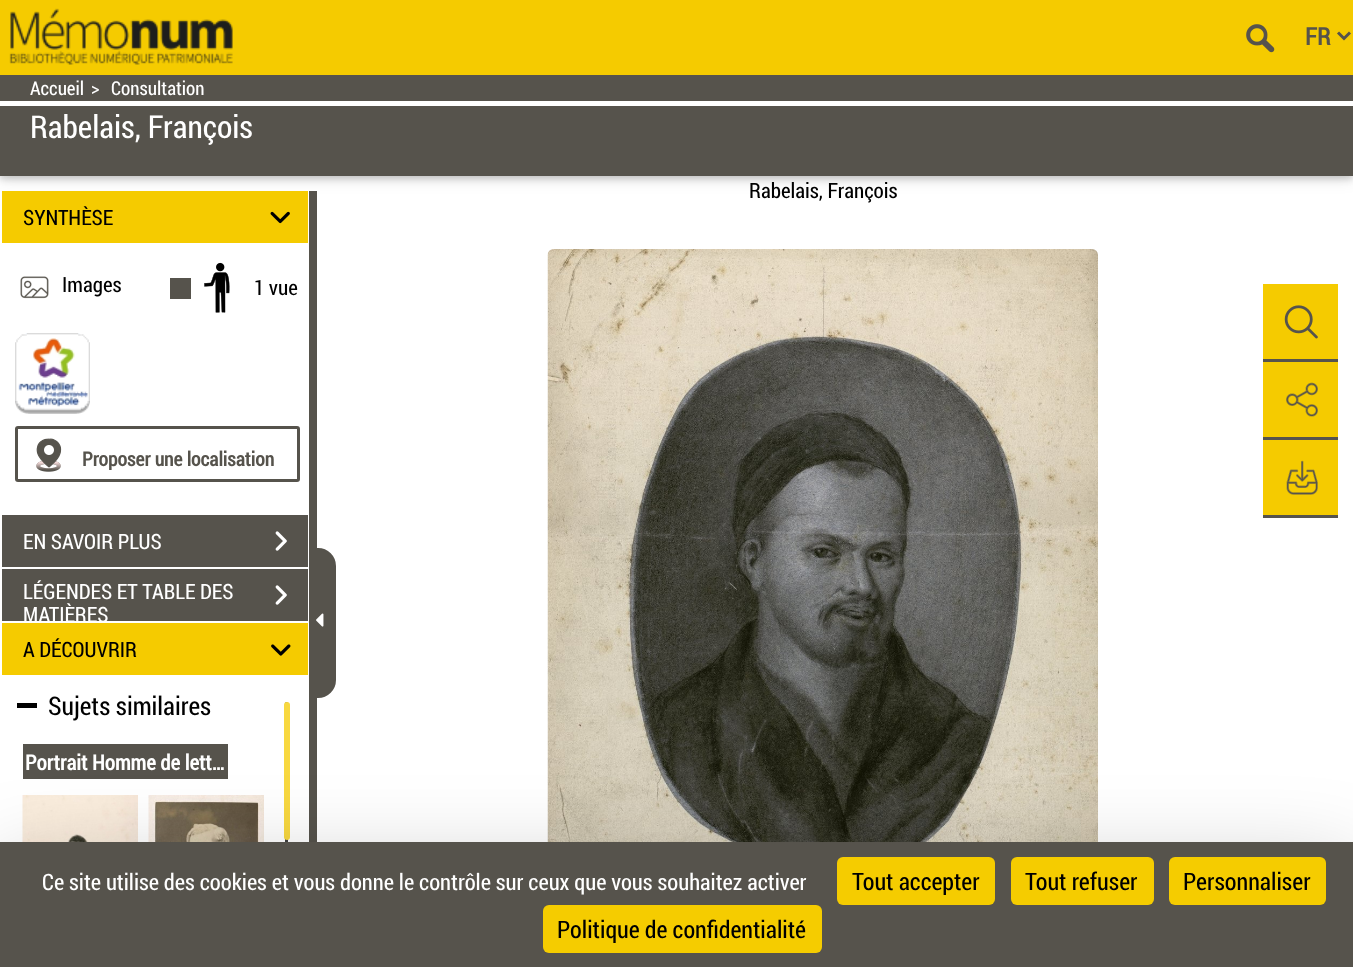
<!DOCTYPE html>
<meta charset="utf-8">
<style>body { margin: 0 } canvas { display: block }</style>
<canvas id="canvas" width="1353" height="967"></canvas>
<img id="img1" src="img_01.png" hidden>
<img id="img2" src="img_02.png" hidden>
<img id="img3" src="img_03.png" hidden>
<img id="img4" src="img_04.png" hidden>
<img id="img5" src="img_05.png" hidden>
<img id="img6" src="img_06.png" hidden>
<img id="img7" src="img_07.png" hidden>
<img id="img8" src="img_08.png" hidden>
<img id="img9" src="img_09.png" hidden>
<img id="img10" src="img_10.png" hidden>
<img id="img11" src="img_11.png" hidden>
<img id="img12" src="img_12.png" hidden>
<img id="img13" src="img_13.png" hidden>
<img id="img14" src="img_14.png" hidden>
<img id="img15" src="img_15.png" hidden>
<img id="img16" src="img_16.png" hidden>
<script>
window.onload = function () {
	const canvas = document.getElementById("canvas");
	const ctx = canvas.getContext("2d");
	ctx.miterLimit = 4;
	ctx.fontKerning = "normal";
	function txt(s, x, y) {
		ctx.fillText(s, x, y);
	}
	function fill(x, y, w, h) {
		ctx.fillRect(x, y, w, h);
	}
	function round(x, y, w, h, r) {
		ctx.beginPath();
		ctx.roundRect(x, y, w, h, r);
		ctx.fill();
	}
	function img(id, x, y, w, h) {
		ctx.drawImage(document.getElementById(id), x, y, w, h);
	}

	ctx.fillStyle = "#FFFFFF";
	fill(0, 0, 1353, 967);
	ctx.fillStyle = "rgba(0, 0, 0, 0.12)";
	ctx.filter = "blur(7.5px)";
	ctx.beginPath();
	ctx.rect(0, 78, 1353, 101);
	ctx.fill();
	ctx.filter = "none";
	ctx.fillStyle = "rgba(0, 0, 0, 0.16)";
	ctx.filter = "blur(3px)";
	ctx.beginPath();
	ctx.rect(0, 78, 1353, 101);
	ctx.fill();
	ctx.filter = "none";
	ctx.fillStyle = "#F5CB00";
	fill(0, 0, 1353, 75);
	img("img1", 9, 8, 224, 57);
	img("img2", 1246, 24, 29, 29);
	ctx.beginPath();
	ctx.moveTo(1338, 32.5);
	ctx.lineTo(1344, 38.5);
	ctx.lineTo(1350, 32.5);
	ctx.strokeStyle = "#56534C";
	ctx.lineWidth = 3;
	ctx.stroke();
	ctx.fillStyle = "#56534C";
	fill(0, 75, 1353, 101);
	ctx.fillStyle = "#FFFFFF";
	fill(0, 101, 1353, 5);
	img("img3", 547, 249, 551, 593);
	ctx.fillStyle = "#F5CB00";
	fill(1263, 284, 75, 75);
	img("img4", 1284, 305, 34, 34);
	ctx.fillStyle = "#56534C";
	fill(1263, 359, 75, 3);
	ctx.fillStyle = "#F5CB00";
	fill(1263, 362, 75, 75);
	img("img5", 1286, 382, 32, 35);
	ctx.fillStyle = "#56534C";
	fill(1263, 437, 75, 3);
	ctx.fillStyle = "#F5CB00";
	fill(1263, 440, 75, 75);
	img("img6", 1286, 460, 32, 35);
	ctx.fillStyle = "#56534C";
	fill(1263, 515, 75, 3);
	fill(309, 191, 8, 651);
	ctx.fillStyle = "#F5CB00";
	fill(2, 191, 306, 52);
	img("img7", 270, 211, 20, 13);
	img("img8", 20, 276, 29, 23);
	ctx.fillStyle = "#56534C";
	fill(170, 278, 21, 21);
	img("img9", 204, 262, 26, 51);
	img("img10", 15, 333, 75, 81);
	ctx.beginPath();
	ctx.roundRect(16.5, 427.5, 282, 53, 1.5);
	ctx.stroke();
	img("img11", 36, 438, 26, 34);
	fill(2, 515, 306, 52);
	img("img12", 275, 531, 12, 20);
	fill(2, 569, 306, 52);
	img("img12", 275, 585, 12, 20);
	ctx.fillStyle = "#F5CB00";
	fill(2, 623, 306, 52);
	img("img13", 271, 644, 20, 12);
	ctx.fillStyle = "#000000";
	ctx.beginPath();
	ctx.moveTo(24.5, 708);
	ctx.lineTo(17, 708);
	ctx.lineTo(17, 703);
	ctx.lineTo(37, 703);
	ctx.lineTo(37, 708);
	ctx.closePath();
	ctx.fill();
	ctx.fillStyle = "#56534C";
	fill(23, 744, 205, 35);
	img("img14", 22, 795, 116, 47);
	img("img15", 148, 795, 116, 47);
	ctx.fillStyle = "#404040";
	round(285, 702, 3, 242, 1.5);
	ctx.fillStyle = "#F8D840";
	round(284, 702, 6, 138, 3);
	ctx.fillStyle = "#56534C";
	ctx.beginPath();
	ctx.roundRect(318, 549, 17, 148, [0, 18, 18, 0]);
	ctx.fill();
	ctx.lineWidth = 2;
	ctx.stroke();
	img("img16", 316, 613, 8, 14);
	ctx.fillStyle = "rgba(0, 0, 0, 0.25)";
	ctx.filter = "blur(45px)";
	ctx.beginPath();
	ctx.rect(0, 872, 1353, 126);
	ctx.fill();
	ctx.filter = "none";
	ctx.fillStyle = "#56534C";
	fill(0, 842, 1353, 125);
	ctx.fillStyle = "#F5CC00";
	round(837, 857, 158, 48, 6);
	round(1011, 857, 143, 48, 6);
	round(1169, 857, 157, 48, 6);
	round(543, 905, 279, 48, 6);
	ctx.font = "bold 24px Roboto Condensed";
	ctx.fillStyle = "#56534C";
	txt("FR", 1305, 45);
	ctx.font = "19px Roboto Condensed";
	ctx.fillStyle = "#FFFFFF";
	txt("Accueil", 30, 95);
	txt(">", 91, 95);
	txt("Consultation", 111, 95);
	ctx.font = "31.5px Roboto Condensed";
	txt("Rabelais, François", 30, 138);
	ctx.font = "21px Roboto Condensed";
	ctx.fillStyle = "#000000";
	txt("Rabelais, François", 749, 198);
	txt("SYNTHÈSE", 23, 225);
	txt("Images", 62, 292);
	txt("1 vue", 254, 295);
	ctx.font = "bold 19.5px Roboto Condensed";
	ctx.fillStyle = "#56534C";
	txt("Proposer une localisation", 82, 466);
	ctx.font = "21px Roboto Condensed";
	ctx.fillStyle = "#FFFFFF";
	txt("EN SAVOIR PLUS", 23, 549);
	txt("LÉGENDES ET TABLE DES", 23, 599);
	txt("MATIÈRES", 23, 622);
	ctx.fillStyle = "#000000";
	txt("A DÉCOUVRIR", 23, 657);
	ctx.font = "25.5px Roboto Condensed";
	txt("Sujets similaires", 48, 715);
	ctx.font = "bold 21px Roboto Condensed";
	ctx.fillStyle = "#FFFFFF";
	txt("Portrait Homme de lett…", 25, 770);
	ctx.font = "22.5px Roboto Condensed";
	txt("Ce site utilise des cookies et vous donne le contrôle sur ceux que vous souhaitez activer", 42, 890);
	ctx.font = "24px Roboto Condensed";
	ctx.fillStyle = "#000000";
	txt("Tout accepter", 852, 890);
	txt("Tout refuser", 1025, 890);
	txt("Personnaliser", 1183, 890);
	txt("Politique de confidentialité", 557, 938);
};
</script>
